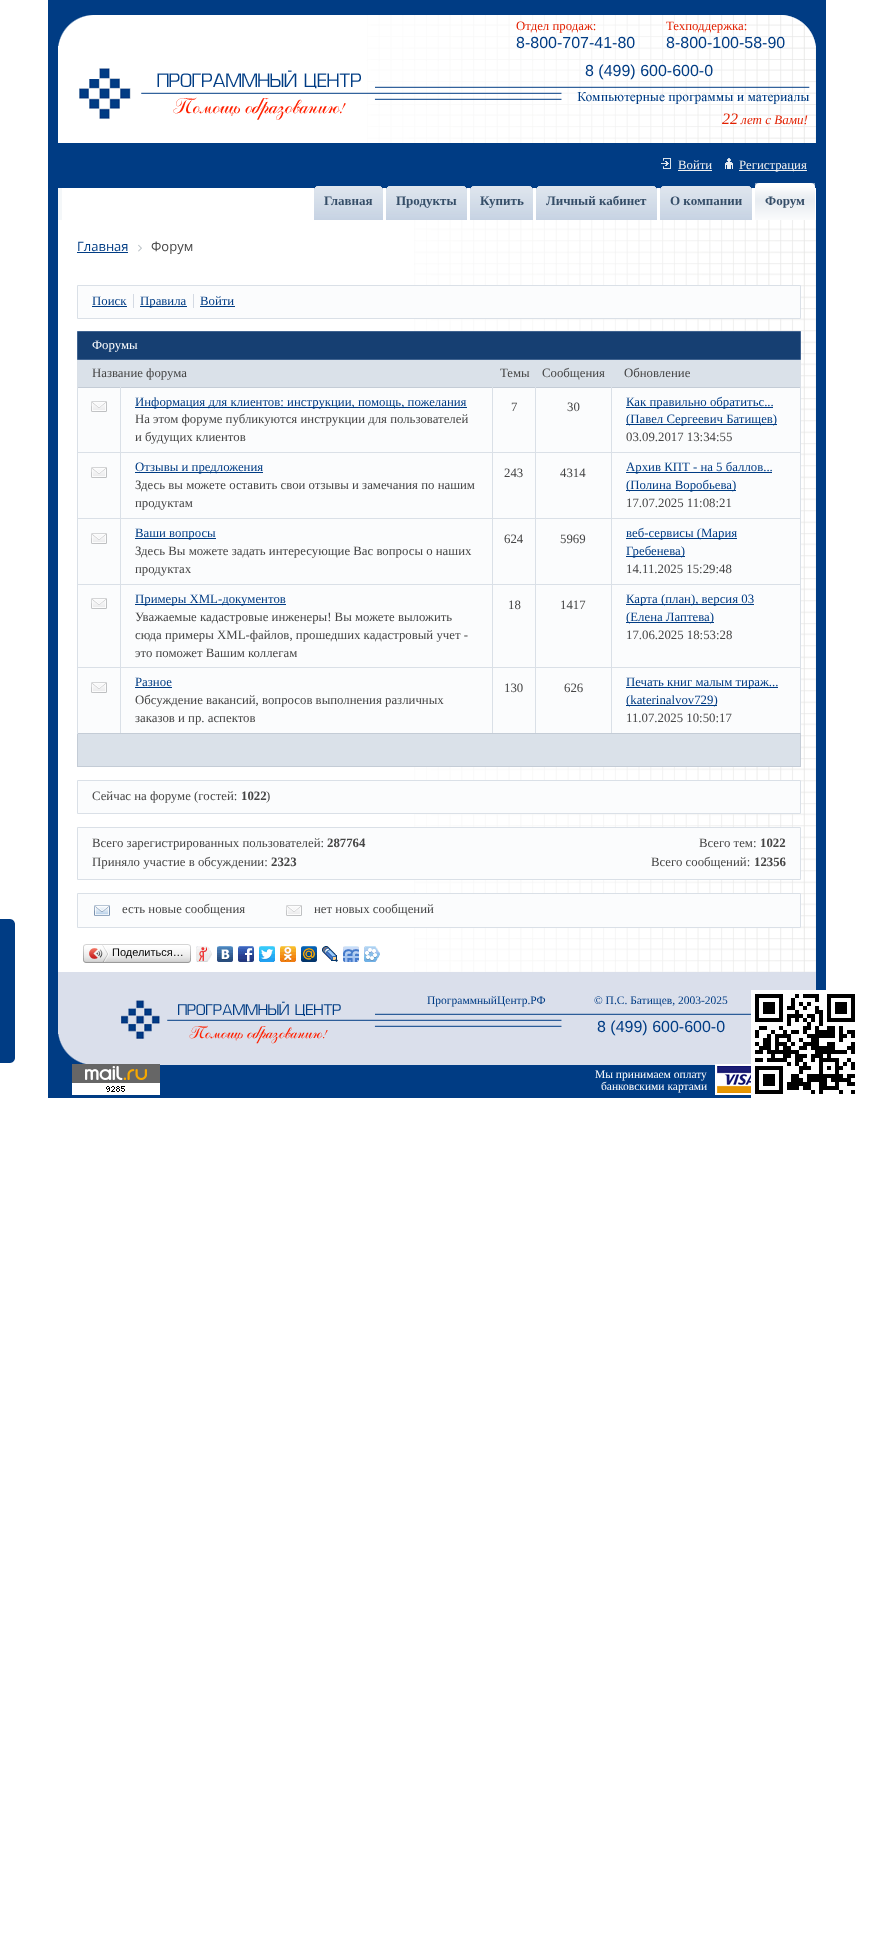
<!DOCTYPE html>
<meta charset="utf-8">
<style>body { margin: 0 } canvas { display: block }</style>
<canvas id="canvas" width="874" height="1939"></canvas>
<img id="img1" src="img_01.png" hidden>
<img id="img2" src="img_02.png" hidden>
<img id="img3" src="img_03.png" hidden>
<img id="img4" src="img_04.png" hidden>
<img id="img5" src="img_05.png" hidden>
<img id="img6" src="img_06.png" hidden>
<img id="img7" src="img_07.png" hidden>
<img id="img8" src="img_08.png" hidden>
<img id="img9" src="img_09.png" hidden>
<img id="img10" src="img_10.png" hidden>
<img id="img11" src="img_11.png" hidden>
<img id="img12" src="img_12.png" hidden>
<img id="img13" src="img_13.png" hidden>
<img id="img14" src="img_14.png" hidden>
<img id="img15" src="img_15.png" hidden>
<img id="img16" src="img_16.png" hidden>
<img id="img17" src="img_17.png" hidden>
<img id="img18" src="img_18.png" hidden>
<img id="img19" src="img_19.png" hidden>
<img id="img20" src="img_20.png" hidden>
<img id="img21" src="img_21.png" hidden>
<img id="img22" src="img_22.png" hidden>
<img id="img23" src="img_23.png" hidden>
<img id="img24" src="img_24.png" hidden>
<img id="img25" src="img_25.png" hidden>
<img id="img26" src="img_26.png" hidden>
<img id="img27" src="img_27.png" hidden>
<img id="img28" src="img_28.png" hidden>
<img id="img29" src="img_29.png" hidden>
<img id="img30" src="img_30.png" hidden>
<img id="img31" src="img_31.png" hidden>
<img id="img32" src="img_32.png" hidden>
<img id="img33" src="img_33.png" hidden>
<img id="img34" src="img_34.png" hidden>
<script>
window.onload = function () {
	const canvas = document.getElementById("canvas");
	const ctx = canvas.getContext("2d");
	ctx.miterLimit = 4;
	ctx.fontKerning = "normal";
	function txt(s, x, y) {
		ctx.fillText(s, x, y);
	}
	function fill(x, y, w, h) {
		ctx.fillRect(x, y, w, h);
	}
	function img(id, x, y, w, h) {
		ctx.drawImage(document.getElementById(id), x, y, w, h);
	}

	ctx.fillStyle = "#FFFFFF";
	fill(0, 0, 874, 1939);
	ctx.fillStyle = "#003C84";
	ctx.beginPath();
	ctx.moveTo(-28, 1058);
	ctx.lineTo(-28, 924);
	ctx.bezierCurveTo(-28, 922, -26, 919, -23, 919);
	ctx.lineTo(10, 919);
	ctx.bezierCurveTo(13, 919, 15, 922, 15, 924);
	ctx.lineTo(15, 1058);
	ctx.bezierCurveTo(15, 1060, 13, 1063, 10, 1063);
	ctx.lineTo(-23, 1063);
	ctx.bezierCurveTo(-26, 1063, -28, 1060, -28, 1058);
	ctx.closePath();
	ctx.fill();
	fill(48, 0, 778, 1098);
	img("img1", 58, 15, 758, 128);
	img("img2", 661, 158, 10, 11);
	ctx.fillStyle = "#F0F0F0";
	fill(678, 170, 34, 1);
	img("img3", 725, 158, 8, 11);
	fill(739, 170, 68, 1);
	ctx.fillStyle = "#FFFFFF";
	fill(58, 188, 758, 784);
	ctx.fillStyle = "#F4F7F9";
	fill(58, 188, 4, 32);
	img("img4", 314, 186, 4, 34);
	img("img5", 379, 186, 4, 34);
	img("img6", 318, 186, 61, 34);
	img("img4", 386, 186, 4, 34);
	img("img5", 463, 186, 4, 34);
	img("img7", 390, 186, 73, 34);
	img("img4", 470, 186, 4, 34);
	img("img5", 529, 186, 4, 34);
	img("img8", 474, 186, 55, 34);
	img("img4", 536, 186, 4, 34);
	img("img5", 653, 186, 4, 34);
	img("img9", 540, 186, 113, 34);
	img("img4", 660, 186, 4, 34);
	img("img5", 748, 186, 4, 34);
	img("img10", 664, 186, 84, 34);
	img("img11", 755, 183, 4, 37);
	img("img12", 811, 183, 4, 37);
	img("img13", 759, 183, 52, 37);
	img("img14", 414, 220, 402, 752);
	ctx.fillStyle = "#003C84";
	fill(77, 252, 51, 1);
	img("img15", 138, 244, 4, 8);
	ctx.fillStyle = "#FBFCFD";
	ctx.beginPath();
	ctx.rect(77.5, 285.5, 723, 33);
	ctx.fill();
	ctx.strokeStyle = "#DAE0E7";
	ctx.stroke();
	ctx.fillStyle = "#D4DAE3";
	fill(133, 294, 1, 14);
	ctx.fillStyle = "#003C84";
	fill(92, 306, 35, 1);
	ctx.fillStyle = "#D4DAE3";
	fill(193, 294, 1, 14);
	ctx.fillStyle = "#003C84";
	fill(140, 306, 47, 1);
	fill(200, 306, 35, 1);
	ctx.fillStyle = "#163F72";
	ctx.beginPath();
	ctx.rect(77.5, 331.5, 723, 28);
	ctx.fill();
	ctx.strokeStyle = "#406390";
	ctx.stroke();
	ctx.fillStyle = "#DAE1E9";
	fill(78, 360, 722, 27);
	ctx.fillStyle = "#DAE0E7";
	fill(77, 360, 1, 27);
	fill(800, 360, 1, 27);
	ctx.fillStyle = "#FBFCFD";
	fill(78, 388, 42, 64);
	ctx.fillStyle = "#C4CCD6";
	fill(77, 387, 724, 1);
	ctx.fillStyle = "#DAE0E7";
	fill(120, 387, 1, 347);
	fill(77, 452, 44, 1);
	fill(77, 387, 1, 66);
	img("img16", 91, 401, 16, 11);
	ctx.fillStyle = "#FBFCFD";
	fill(121, 388, 371, 64);
	ctx.fillStyle = "#DAE0E7";
	fill(492, 387, 1, 347);
	fill(121, 452, 372, 1);
	ctx.fillStyle = "#003C84";
	fill(135, 407, 332, 1);
	ctx.fillStyle = "#FBFCFD";
	fill(493, 388, 42, 64);
	ctx.fillStyle = "#DAE0E7";
	fill(535, 387, 1, 347);
	fill(493, 452, 43, 1);
	ctx.fillStyle = "#FBFCFD";
	fill(536, 388, 75, 64);
	ctx.fillStyle = "#DAE0E7";
	fill(611, 387, 1, 347);
	fill(536, 452, 76, 1);
	ctx.fillStyle = "#FBFCFD";
	fill(612, 388, 188, 64);
	ctx.fillStyle = "#DAE0E7";
	fill(800, 387, 1, 347);
	fill(612, 452, 189, 1);
	ctx.fillStyle = "#003C84";
	fill(626, 407, 147, 1);
	fill(626, 424, 151, 1);
	ctx.fillStyle = "#FBFCFD";
	fill(78, 453, 42, 65);
	ctx.fillStyle = "#DAE0E7";
	fill(77, 518, 724, 1);
	fill(77, 453, 1, 66);
	img("img16", 91, 467, 16, 11);
	ctx.fillStyle = "#FBFCFD";
	fill(121, 453, 371, 65);
	ctx.fillStyle = "#003C84";
	fill(135, 472, 128, 1);
	ctx.fillStyle = "#FBFCFD";
	fill(493, 453, 42, 65);
	fill(536, 453, 75, 65);
	fill(612, 453, 188, 65);
	ctx.fillStyle = "#003C84";
	fill(626, 472, 146, 1);
	fill(626, 490, 110, 1);
	ctx.fillStyle = "#FBFCFD";
	fill(78, 519, 42, 65);
	ctx.fillStyle = "#DAE0E7";
	fill(77, 584, 724, 1);
	fill(77, 519, 1, 66);
	img("img16", 91, 533, 16, 11);
	ctx.fillStyle = "#FBFCFD";
	fill(121, 519, 371, 65);
	ctx.fillStyle = "#003C84";
	fill(135, 538, 81, 1);
	ctx.fillStyle = "#FBFCFD";
	fill(493, 519, 42, 65);
	fill(536, 519, 75, 65);
	fill(612, 519, 188, 65);
	ctx.fillStyle = "#003C84";
	fill(626, 538, 111, 1);
	fill(626, 556, 59, 1);
	ctx.fillStyle = "#FBFCFD";
	fill(78, 585, 42, 82);
	ctx.fillStyle = "#DAE0E7";
	fill(77, 667, 724, 1);
	fill(77, 585, 1, 83);
	img("img16", 91, 598, 16, 11);
	ctx.fillStyle = "#FBFCFD";
	fill(121, 585, 371, 82);
	ctx.fillStyle = "#003C84";
	fill(135, 604, 151, 1);
	ctx.fillStyle = "#FBFCFD";
	fill(493, 585, 42, 82);
	fill(536, 585, 75, 82);
	fill(612, 585, 188, 82);
	ctx.fillStyle = "#003C84";
	fill(626, 604, 128, 1);
	fill(626, 622, 88, 1);
	ctx.fillStyle = "#FBFCFD";
	fill(78, 668, 42, 65);
	ctx.fillStyle = "#C4CCD6";
	fill(77, 733, 724, 1);
	ctx.fillStyle = "#DAE0E7";
	fill(77, 668, 1, 66);
	img("img16", 91, 682, 16, 11);
	ctx.fillStyle = "#FBFCFD";
	fill(121, 668, 371, 65);
	ctx.fillStyle = "#003C84";
	fill(135, 687, 37, 1);
	ctx.fillStyle = "#FBFCFD";
	fill(493, 668, 42, 65);
	fill(536, 668, 75, 65);
	fill(612, 668, 188, 65);
	ctx.fillStyle = "#003C84";
	fill(626, 687, 152, 1);
	fill(626, 705, 91, 1);
	ctx.fillStyle = "#DAE1E9";
	fill(78, 734, 722, 32);
	ctx.fillStyle = "#C4CCD6";
	fill(800, 734, 1, 33);
	fill(77, 766, 724, 1);
	fill(77, 734, 1, 33);
	ctx.fillStyle = "#FBFCFD";
	ctx.beginPath();
	ctx.rect(77.5, 780.5, 723, 33);
	ctx.fill();
	ctx.strokeStyle = "#DAE0E7";
	ctx.stroke();
	ctx.beginPath();
	ctx.rect(77.5, 827.5, 723, 52);
	ctx.fill();
	ctx.stroke();
	ctx.beginPath();
	ctx.rect(77.5, 893.5, 723, 34);
	ctx.fill();
	ctx.stroke();
	img("img17", 94, 905, 16, 11);
	img("img16", 286, 905, 16, 11);
	img("img18", 86, 944, 102, 19);
	img("img19", 83, 944, 3, 19);
	img("img20", 89, 945, 20, 17);
	img("img21", 188, 944, 3, 19);
	img("img22", 196, 946, 16, 16);
	img("img23", 217, 946, 16, 16);
	img("img24", 238, 946, 16, 16);
	img("img25", 259, 946, 16, 16);
	img("img26", 280, 946, 16, 16);
	img("img27", 301, 946, 16, 16);
	img("img28", 322, 946, 16, 16);
	img("img29", 343, 946, 16, 16);
	img("img30", 364, 946, 16, 16);
	img("img31", 58, 972, 758, 93);
	img("img32", 72, 1064, 88, 31);
	img("img33", 715, 1064, 36, 31);
	img("img34", 751, 990, 104, 108);
	ctx.font = "12.8px Liberation Serif";
	ctx.fillStyle = "#E22000";
	txt("Отдел продаж:", 516, 30);
	ctx.font = "16px Liberation Sans";
	ctx.fillStyle = "#003C84";
	txt("8-800-707-41-80", 516, 48);
	ctx.font = "12.8px Liberation Serif";
	ctx.fillStyle = "#E22000";
	txt("Техподдержка:", 666, 30);
	ctx.font = "16px Liberation Sans";
	ctx.fillStyle = "#003C84";
	txt("8-800-100-58-90", 666, 48);
	txt("8 (499) 600-600-0", 585, 76);
	ctx.font = "italic 16px Liberation Serif";
	ctx.fillStyle = "#E22000";
	txt("22", 722, 124);
	ctx.font = "italic 13px Liberation Serif";
	txt("лет с Вами!", 741, 124);
	ctx.font = "12.8px Liberation Serif";
	ctx.fillStyle = "#F0F0F0";
	txt("Войти", 678, 169);
	txt("Регистрация", 739, 169);
	ctx.font = "bold 13px Liberation Serif";
	ctx.fillStyle = "#364E68";
	txt("Главная", 324, 205);
	txt("Продукты", 396, 205);
	txt("Купить", 480, 205);
	txt("Личный кабинет", 546, 205);
	txt("О компании", 670, 205);
	txt("Форум", 765, 205);
	ctx.font = "13px Open Sans";
	ctx.fillStyle = "#003C84";
	txt("Главная", 77, 251);
	ctx.fillStyle = "#454545";
	txt("Форум", 151, 251);
	ctx.font = "12.8px Liberation Serif";
	ctx.fillStyle = "#003C84";
	txt("Поиск", 92, 305);
	txt("Правила", 140, 305);
	txt("Войти", 200, 305);
	ctx.fillStyle = "#FFFFFF";
	txt("Форумы", 92, 349);
	ctx.fillStyle = "#454545";
	txt("Название форума", 92, 377);
	txt("Темы", 500, 377);
	txt("Сообщения", 542, 377);
	txt("Обновление", 624, 377);
	ctx.fillStyle = "#003C84";
	txt("Информация для клиентов: инструкции, помощь, пожелания", 135, 406);
	ctx.fillStyle = "#454545";
	txt("На этом форуме публикуются инструкции для пользователей", 135, 423);
	txt("и будущих клиентов", 135, 441);
	txt("7", 511, 411);
	txt("30", 567, 411);
	ctx.fillStyle = "#003C84";
	txt("Как правильно обратитьс...", 626, 406);
	txt("(Павел Сергеевич Батищев)", 626, 423);
	ctx.fillStyle = "#454545";
	txt("03.09.2017 13:34:55", 626, 441);
	ctx.fillStyle = "#003C84";
	txt("Отзывы и предложения", 135, 471);
	ctx.fillStyle = "#454545";
	txt("Здесь вы можете оставить свои отзывы и замечания по нашим", 135, 489);
	txt("продуктам", 135, 507);
	txt("243", 504, 477);
	txt("4314", 560, 477);
	ctx.fillStyle = "#003C84";
	txt("Архив КПТ - на 5 баллов...", 626, 471);
	txt("(Полина Воробьева)", 626, 489);
	ctx.fillStyle = "#454545";
	txt("17.07.2025 11:08:21", 626, 507);
	ctx.fillStyle = "#003C84";
	txt("Ваши вопросы", 135, 537);
	ctx.fillStyle = "#454545";
	txt("Здесь Вы можете задать интересующие Вас вопросы о наших", 135, 555);
	txt("продуктах", 135, 573);
	txt("624", 504, 543);
	txt("5969", 560, 543);
	ctx.fillStyle = "#003C84";
	txt("веб-сервисы (Мария", 626, 537);
	txt("Гребенева)", 626, 555);
	ctx.fillStyle = "#454545";
	txt("14.11.2025 15:29:48", 626, 573);
	ctx.fillStyle = "#003C84";
	txt("Примеры XML-документов", 135, 603);
	ctx.fillStyle = "#454545";
	txt("Уважаемые кадастровые инженеры! Вы можете выложить", 135, 621);
	txt("сюда примеры XML-файлов, прошедших кадастровый учет -", 135, 639);
	txt("это поможет Вашим коллегам", 135, 657);
	txt("18", 508, 609);
	txt("1417", 560, 609);
	ctx.fillStyle = "#003C84";
	txt("Карта (план), версия 03", 626, 603);
	txt("(Елена Лаптева)", 626, 621);
	ctx.fillStyle = "#454545";
	txt("17.06.2025 18:53:28", 626, 639);
	ctx.fillStyle = "#003C84";
	txt("Разное", 135, 686);
	ctx.fillStyle = "#454545";
	txt("Обсуждение вакансий, вопросов выполнения различных", 135, 704);
	txt("заказов и пр. аспектов", 135, 722);
	txt("130", 504, 692);
	txt("626", 564, 692);
	ctx.fillStyle = "#003C84";
	txt("Печать книг малым тираж...", 626, 686);
	txt("(katerinalvov729)", 626, 704);
	ctx.fillStyle = "#454545";
	txt("11.07.2025 10:50:17", 626, 722);
	txt("Сейчас на форуме (гостей:", 92, 800);
	ctx.font = "bold 12.8px Liberation Serif";
	txt("1022", 241, 800);
	ctx.font = "12.8px Liberation Serif";
	txt(")", 266, 800);
	txt("Всего зарегистрированных пользователей:", 92, 847);
	ctx.font = "bold 12.8px Liberation Serif";
	txt("287764", 327, 847);
	ctx.font = "12.8px Liberation Serif";
	txt("Всего тем:", 699, 847);
	ctx.font = "bold 12.8px Liberation Serif";
	txt("1022", 760, 847);
	ctx.font = "12.8px Liberation Serif";
	txt("Приняло участие в обсуждении:", 92, 866);
	ctx.font = "bold 12.8px Liberation Serif";
	txt("2323", 271, 866);
	ctx.font = "12.8px Liberation Serif";
	txt("Всего сообщений:", 651, 866);
	ctx.font = "bold 12.8px Liberation Serif";
	txt("12356", 754, 866);
	ctx.font = "12.8px Liberation Serif";
	txt("есть новые сообщения", 122, 913);
	txt("нет новых сообщений", 314, 913);
	ctx.font = "11px Liberation Sans";
	ctx.fillStyle = "#000000";
	txt("Поделиться…", 112, 956);
	ctx.font = "11.5px Liberation Serif";
	ctx.fillStyle = "#003C84";
	txt("ПрограммныйЦентр.РФ", 427, 1004);
	txt("© П.С. Батищев, 2003-2025", 594, 1004);
	ctx.font = "16px Liberation Sans";
	txt("8 (499) 600-600-0", 597, 1032);
	ctx.font = "11.5px Liberation Serif";
	ctx.fillStyle = "#FFFFFF";
	txt("Мы принимаем оплату", 595, 1078);
	txt("банковскими картами", 601, 1090);
};
</script>
